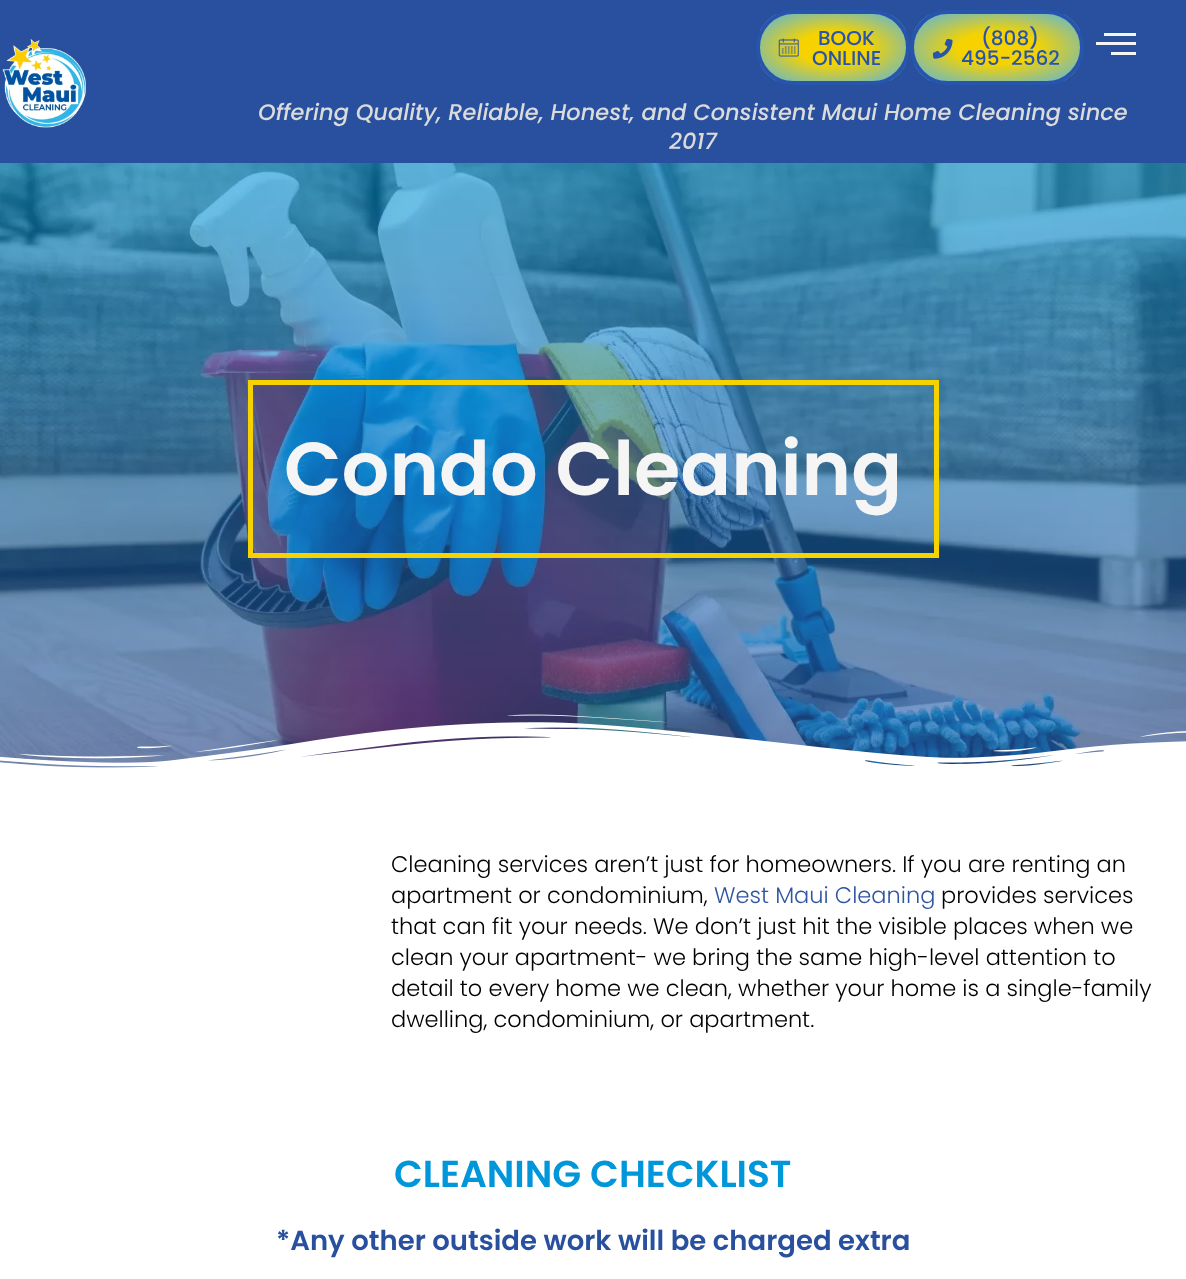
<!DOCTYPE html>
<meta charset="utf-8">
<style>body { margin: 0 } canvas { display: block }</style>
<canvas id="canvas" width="1186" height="1279"></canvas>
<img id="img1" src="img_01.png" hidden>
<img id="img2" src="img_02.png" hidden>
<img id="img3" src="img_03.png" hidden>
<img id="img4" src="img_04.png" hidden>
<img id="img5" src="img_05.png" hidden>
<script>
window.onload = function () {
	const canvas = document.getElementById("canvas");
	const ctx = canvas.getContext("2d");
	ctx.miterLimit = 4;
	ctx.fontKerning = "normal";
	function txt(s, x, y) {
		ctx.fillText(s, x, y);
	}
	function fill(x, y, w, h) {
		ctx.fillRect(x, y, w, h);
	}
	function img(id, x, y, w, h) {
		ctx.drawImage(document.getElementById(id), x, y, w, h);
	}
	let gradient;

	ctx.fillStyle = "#FFFFFF";
	fill(0, 0, 1186, 1279);
	ctx.fillStyle = "#29509E";
	fill(0, 0, 1186, 163);
	img("img1", 2, 39, 84, 89);
	ctx.save();
	ctx.beginPath();
	ctx.roundRect(756, 10, 154, 75, 37.5);
	ctx.clip();
	gradient = ctx.createRadialGradient(833, 103, 0, 833, 103, 103);
	gradient.addColorStop(0.33, "#F6D300");
	gradient.addColorStop(1, "#53B4E7");
	ctx.fillStyle = gradient;
	ctx.beginPath();
	ctx.rect(760, 14, 146, 67);
	ctx.save();
	ctx.clip();
	ctx.scale(1, 48 / 103);
	ctx.fillRect(0, 0, 1186, 2745);
	ctx.restore();
	ctx.restore();
	ctx.beginPath();
	ctx.roundRect(758, 12, 150, 71, 35.5);
	ctx.strokeStyle = "#2755AD";
	ctx.lineWidth = 4;
	ctx.stroke();
	img("img2", 778, 38, 21, 19);
	ctx.save();
	ctx.beginPath();
	ctx.roundRect(910, 10, 174, 75, 37.5);
	ctx.clip();
	gradient = ctx.createRadialGradient(997, 118, 0, 997, 118, 118);
	gradient.addColorStop(0.33, "#F6D300");
	gradient.addColorStop(1, "#53B4E7");
	ctx.fillStyle = gradient;
	ctx.beginPath();
	ctx.rect(914, 14, 166, 67);
	ctx.save();
	ctx.clip();
	ctx.scale(1, 48 / 118);
	ctx.fillRect(0, 0, 1186, 3145);
	ctx.restore();
	ctx.restore();
	ctx.beginPath();
	ctx.roundRect(912, 12, 170, 71, 35.5);
	ctx.stroke();
	img("img3", 933, 39, 20, 20);
	ctx.fillStyle = "#F5F5F5";
	ctx.beginPath();
	ctx.moveTo(1096, 45);
	ctx.lineTo(1136, 45);
	ctx.lineTo(1136, 42);
	ctx.lineTo(1096, 42);
	ctx.closePath();
	ctx.moveTo(1111, 55);
	ctx.lineTo(1136, 55);
	ctx.lineTo(1136, 52);
	ctx.lineTo(1111, 52);
	ctx.closePath();
	ctx.moveTo(1104, 33);
	ctx.lineTo(1104, 36);
	ctx.lineTo(1136, 36);
	ctx.lineTo(1136, 33);
	ctx.closePath();
	ctx.fill();
	img("img4", 0, 163, 1186, 605);
	ctx.strokeStyle = "#F6D300";
	ctx.lineWidth = 5;
	ctx.strokeRect(250.5, 382.5, 686, 173);
	img("img5", 0, 714, 1186, 61);
	ctx.font = "500 20px Poppins";
	ctx.fillStyle = "#2755AD";
	txt("BOOK", 818, 45);
	txt("ONLINE", 812, 65);
	txt("(808)", 981, 45);
	txt("495-2562", 961, 65);
	ctx.font = "italic 500 22.5px Poppins";
	ctx.fillStyle = "#DBDBDB";
	txt("Offering Quality, Reliable, Honest, and Consistent Maui Home Cleaning since", 258, 120);
	txt("2017", 669, 149);
	ctx.font = "600 75px Poppins";
	ctx.fillStyle = "#F5F5F5";
	txt("Condo Cleaning", 284, 495);
	ctx.font = "300 22.5px Poppins";
	ctx.fillStyle = "#000000";
	txt("Cleaning services aren’t just for homeowners. If you are renting an", 391, 872);
	txt("apartment or condominium,", 391, 903);
	ctx.fillStyle = "#2F55A1";
	txt("West Maui Cleaning", 714, 903);
	ctx.fillStyle = "#000000";
	txt("provides services", 941, 903);
	txt("that can fit your needs. We don’t just hit the visible places when we", 391, 934);
	txt("clean your apartment- we bring the same high-level attention to", 391, 965);
	txt("detail to every home we clean, whether your home is a single-family", 391, 996);
	txt("dwelling, condominium, or apartment.", 391, 1027);
	ctx.font = "600 37.5px Poppins";
	ctx.fillStyle = "#0097DA";
	txt("CLEANING CHECKLIST", 394, 1187);
	ctx.font = "600 27.5px Poppins";
	ctx.fillStyle = "#29509E";
	txt("*Any other outside work will be charged extra", 276, 1250);
};
</script>
